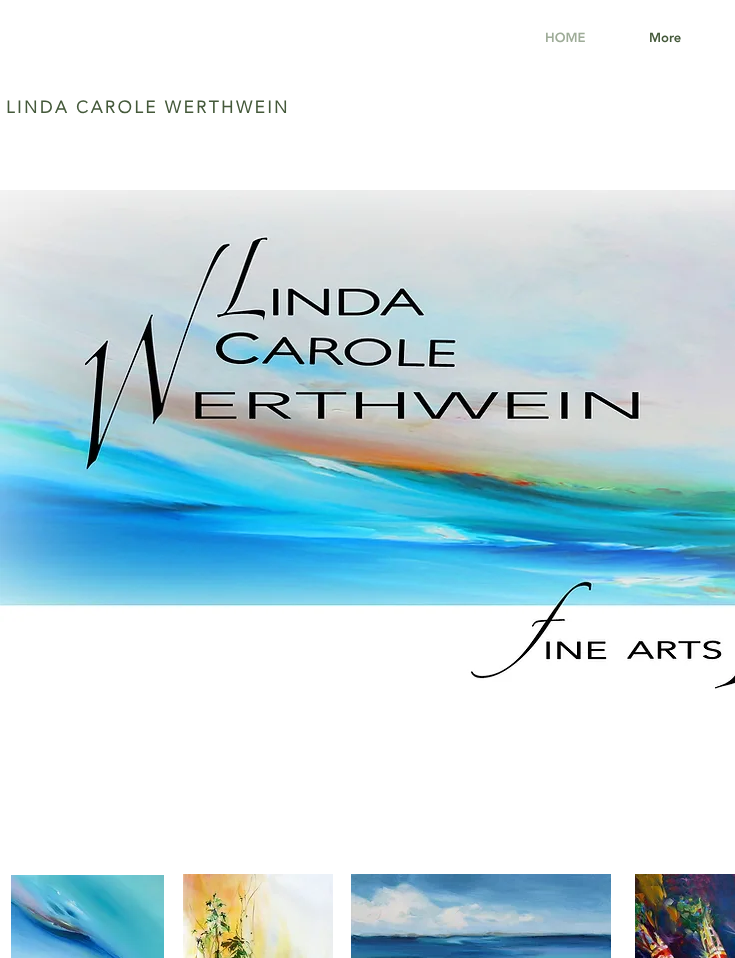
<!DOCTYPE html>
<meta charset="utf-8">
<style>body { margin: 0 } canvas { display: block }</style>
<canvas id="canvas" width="735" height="958"></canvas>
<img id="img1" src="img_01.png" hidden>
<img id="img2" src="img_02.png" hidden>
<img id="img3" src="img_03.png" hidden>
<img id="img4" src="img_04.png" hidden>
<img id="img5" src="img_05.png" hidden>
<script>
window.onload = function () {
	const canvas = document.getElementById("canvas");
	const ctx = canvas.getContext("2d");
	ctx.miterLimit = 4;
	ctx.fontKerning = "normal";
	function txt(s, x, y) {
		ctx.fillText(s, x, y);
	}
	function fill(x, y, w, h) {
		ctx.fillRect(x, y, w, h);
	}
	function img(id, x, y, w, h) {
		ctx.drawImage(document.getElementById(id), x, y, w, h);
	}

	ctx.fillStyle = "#FFFFFF";
	fill(0, 0, 735, 958);
	img("img1", 0, 190, 735, 500);
	img("img2", 11, 875, 153, 83);
	img("img3", 183, 874, 150, 84);
	img("img4", 351, 874, 260, 84);
	img("img5", 635, 874, 100, 84);
	ctx.font = "900 13px 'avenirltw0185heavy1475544'";
	ctx.fillStyle = "#9EAC98";
	txt("HOME", 545, 42);
	ctx.fillStyle = "#44593A";
	txt("More", 649, 42);
	ctx.letterSpacing = "2.55px";
	ctx.font = "bold 17px 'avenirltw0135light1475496'";
	txt("LINDA CAROLE WERTHWEIN", 6, 113);
};
</script>
